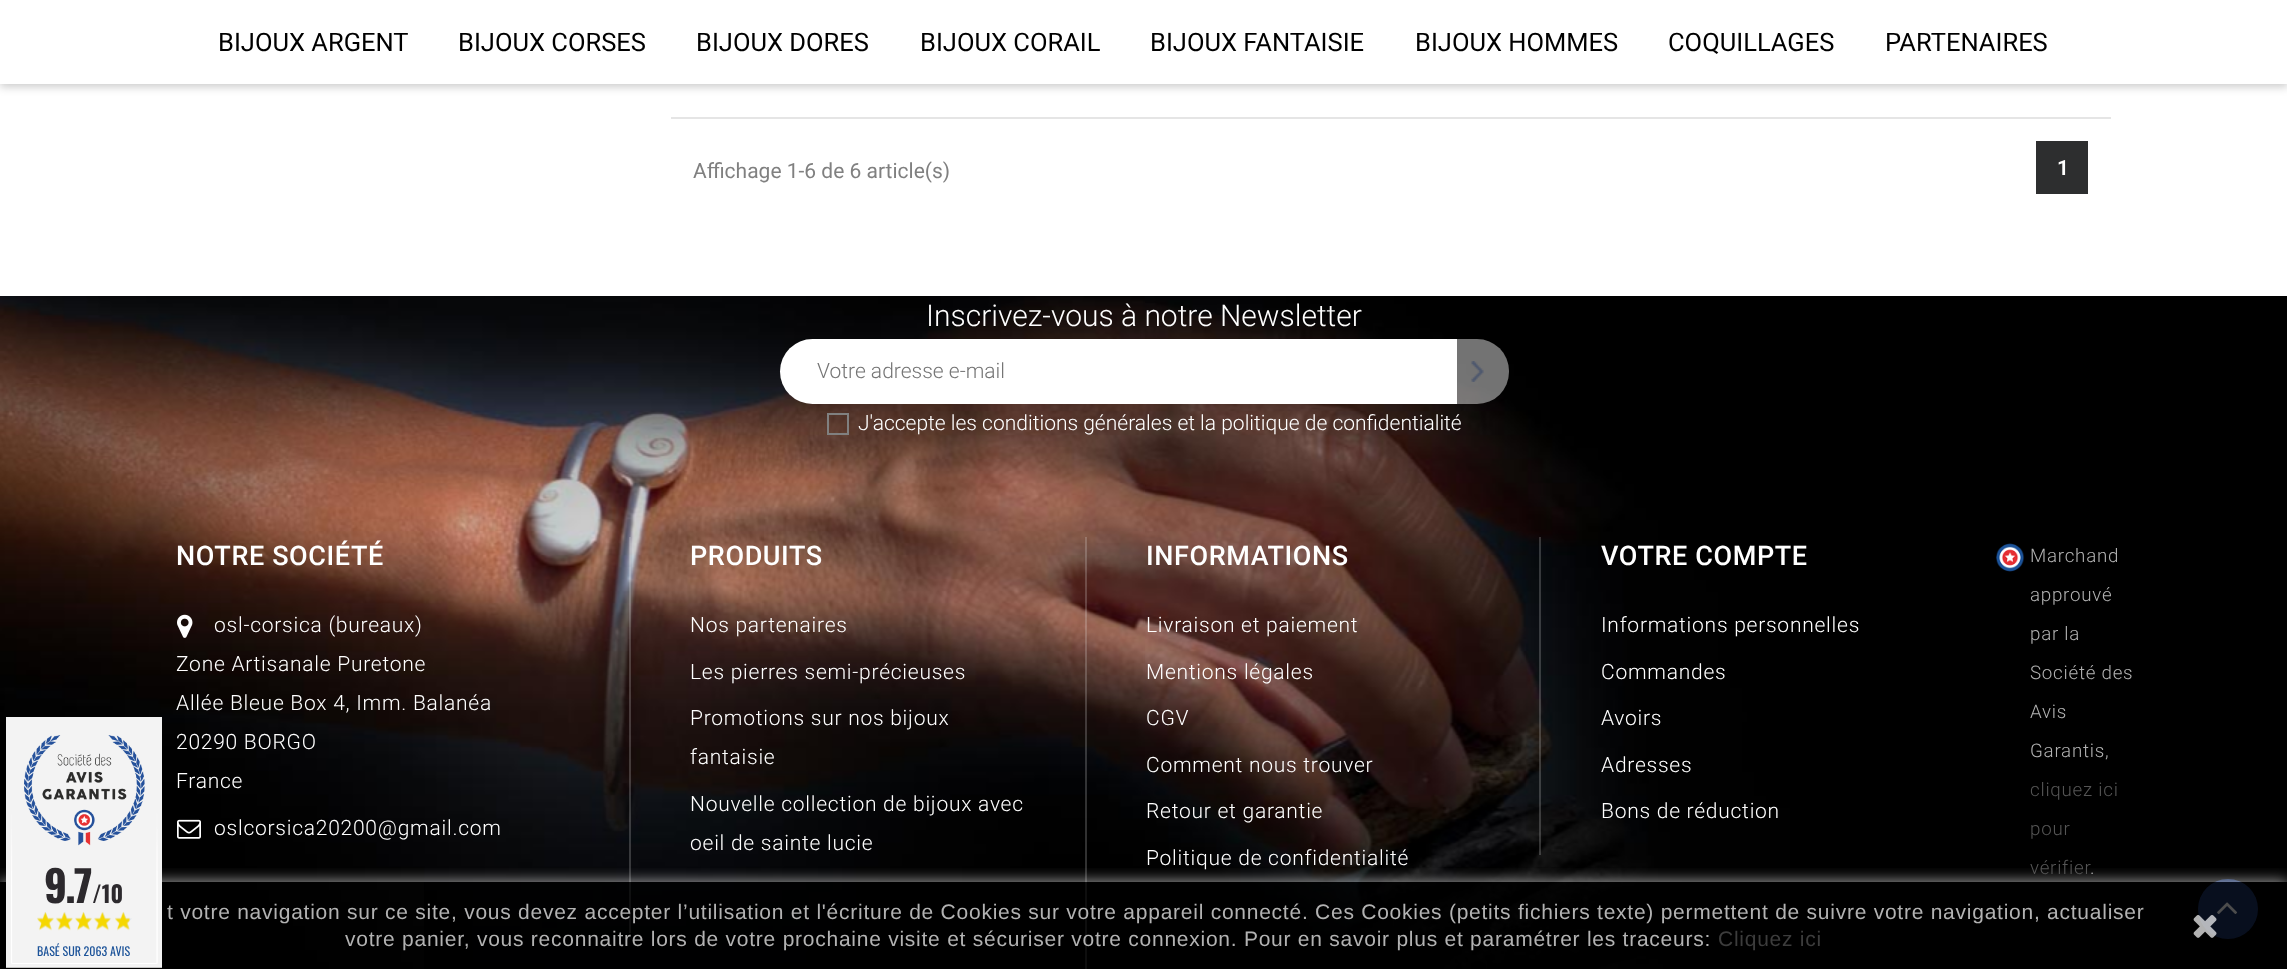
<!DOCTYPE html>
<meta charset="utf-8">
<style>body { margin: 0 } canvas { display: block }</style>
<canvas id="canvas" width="2287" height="969"></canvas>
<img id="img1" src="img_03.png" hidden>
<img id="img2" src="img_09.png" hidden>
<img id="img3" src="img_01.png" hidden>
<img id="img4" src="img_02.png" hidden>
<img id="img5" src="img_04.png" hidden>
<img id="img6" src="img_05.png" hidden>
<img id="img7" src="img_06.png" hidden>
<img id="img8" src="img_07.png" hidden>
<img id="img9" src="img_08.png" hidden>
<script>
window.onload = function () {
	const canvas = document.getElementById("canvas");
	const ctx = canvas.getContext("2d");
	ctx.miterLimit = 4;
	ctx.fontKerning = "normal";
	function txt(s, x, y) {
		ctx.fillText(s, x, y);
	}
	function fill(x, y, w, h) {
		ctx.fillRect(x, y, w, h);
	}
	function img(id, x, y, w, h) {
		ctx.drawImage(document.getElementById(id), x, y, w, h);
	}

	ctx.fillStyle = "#FFFFFF";
	fill(0, 0, 2287, 969);
	img("img1", 0, 296, 2287, 673);
	ctx.fillStyle = "rgba(246, 246, 246, 0.2)";
	fill(629, 537, 2, 396);
	fill(1085, 537, 2, 432);
	ctx.fillStyle = "#1D3467";
	ctx.beginPath();
	ctx.arc(2228, 909, 30, 0, Math.PI * 2);
	ctx.fill();
	img("img2", 2217, 902, 21, 12);
	ctx.save();
	ctx.beginPath();
	ctx.rect(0, 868, 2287, 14);
	ctx.clip();
	ctx.fillStyle = "rgba(255, 255, 255, 0.7)";
	ctx.filter = "blur(7.5px)";
	ctx.beginPath();
	ctx.rect(0, 882, 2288, 87);
	ctx.fill();
	ctx.filter = "none";
	ctx.restore();
	img("img3", 6, 717, 156, 251);
	img("img4", 37, 912, 93, 19);
	ctx.fillStyle = "rgba(0, 0, 0, 0.2)";
	ctx.filter = "blur(4.5px)";
	ctx.beginPath();
	ctx.rect(0, 3, 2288, 84);
	ctx.fill();
	ctx.filter = "none";
	ctx.fillStyle = "#FFFFFF";
	fill(0, 0, 2287, 84);
	ctx.fillStyle = "#E5E5E5";
	fill(671, 117, 1440, 2);
	ctx.fillStyle = "#2D2E2F";
	fill(2036, 141, 52, 53);
	ctx.fillStyle = "#FFFFFF";
	ctx.beginPath();
	ctx.roundRect(780, 339, 677, 65, [32.5, 0, 0, 32.5]);
	ctx.fill();
	ctx.fillStyle = "rgba(255, 255, 255, 0.45)";
	ctx.beginPath();
	ctx.roundRect(1457, 339, 52, 65, [0, 32, 32, 0]);
	ctx.fill();
	img("img5", 1471, 361, 13, 21);
	ctx.strokeStyle = "#808080";
	ctx.lineWidth = 2;
	ctx.strokeRect(828, 414, 20, 20);
	img("img6", 177, 614, 16, 24);
	img("img7", 177, 819, 24, 20);
	ctx.fillStyle = "rgba(246, 246, 246, 0.2)";
	fill(1539, 537, 2, 318);
	img("img8", 1995, 543, 30, 29);
	ctx.fillStyle = "rgba(0, 0, 0, 0.7)";
	fill(424, 882, 1834, 87);
	img("img9", 2193, 915, 24, 23);
	ctx.letterSpacing = "-2px";
	ctx.font = "bold 43px Oswald";
	ctx.fillStyle = "#2C292D";
	txt("9.7", 44, 903);
	ctx.letterSpacing = "0px";
	ctx.font = "bold 23px Oswald";
	txt("/10", 92, 903);
	ctx.font = "12px Oswald";
	ctx.fillStyle = "#1C5399";
	txt("BASÉ SUR 2063 AVIS", 37, 956);
	ctx.font = "25.5px Roboto";
	ctx.fillStyle = "#000000";
	txt("BIJOUX ARGENT", 218, 51);
	txt("BIJOUX CORSES", 458, 51);
	txt("BIJOUX DORES", 696, 51);
	txt("BIJOUX CORAIL", 920, 51);
	txt("BIJOUX FANTAISIE", 1150, 51);
	txt("BIJOUX HOMMES", 1415, 51);
	txt("COQUILLAGES", 1668, 51);
	txt("PARTENAIRES", 1885, 51);
	ctx.font = "21px Roboto";
	ctx.fillStyle = "#808080";
	txt("Affichage 1-6 de 6 article(s)", 693, 178);
	ctx.font = "600 21px Roboto";
	ctx.fillStyle = "#FFFFFF";
	txt("1", 2057, 175);
	ctx.font = "300 30px Roboto";
	txt("Inscrivez-vous à notre Newsletter", 926, 326);
	ctx.font = "300 21px Roboto";
	ctx.fillStyle = "#757575";
	txt("Votre adresse e-mail", 817, 378);
	ctx.fillStyle = "#FFFFFF";
	txt("J'accepte les conditions générales et la politique de confidentialité", 858, 430);
	ctx.letterSpacing = "0.6px";
	ctx.font = "500 27px Roboto";
	txt("NOTRE SOCIÉTÉ", 176, 565);
	ctx.letterSpacing = "0.75px";
	ctx.font = "300 21px Roboto";
	txt("osl-corsica (bureaux)", 214, 632);
	txt("Zone Artisanale Puretone", 176, 671);
	txt("Allée Bleue Box 4, Imm. Balanéa", 176, 710);
	txt("20290 BORGO", 176, 749);
	txt("France", 176, 788);
	txt("oslcorsica20200@gmail.com", 214, 835);
	ctx.letterSpacing = "0.6px";
	ctx.font = "500 27px Roboto";
	txt("PRODUITS", 690, 565);
	ctx.letterSpacing = "0.75px";
	ctx.font = "300 21px Roboto";
	txt("Nos partenaires", 690, 632);
	txt("Les pierres semi-précieuses", 690, 679);
	txt("Promotions sur nos bijoux", 690, 725);
	txt("fantaisie", 690, 764);
	txt("Nouvelle collection de bijoux avec", 690, 811);
	txt("oeil de sainte lucie", 690, 850);
	ctx.letterSpacing = "0.6px";
	ctx.font = "500 27px Roboto";
	txt("INFORMATIONS", 1146, 565);
	ctx.letterSpacing = "0.75px";
	ctx.font = "300 21px Roboto";
	txt("Livraison et paiement", 1146, 632);
	txt("Mentions légales", 1146, 679);
	txt("CGV", 1146, 725);
	txt("Comment nous trouver", 1146, 772);
	txt("Retour et garantie", 1146, 818);
	txt("Politique de confidentialité", 1146, 865);
	ctx.letterSpacing = "0.6px";
	ctx.font = "500 27px Roboto";
	txt("VOTRE COMPTE", 1601, 565);
	ctx.letterSpacing = "0.75px";
	ctx.font = "300 21px Roboto";
	txt("Informations personnelles", 1601, 632);
	txt("Commandes", 1601, 679);
	txt("Avoirs", 1601, 725);
	txt("Adresses", 1601, 772);
	txt("Bons de réduction", 1601, 818);
	ctx.font = "300 18.75px Roboto";
	ctx.fillStyle = "#B2B2B2";
	txt("Marchand", 2030, 562);
	txt("approuvé", 2030, 601);
	txt("par la", 2030, 640);
	txt("Société des", 2030, 679);
	txt("Avis", 2030, 718);
	txt("Garantis,", 2030, 757);
	ctx.fillStyle = "#555555";
	txt("cliquez ici", 2030, 796);
	txt("pour", 2030, 835);
	txt("vérifier", 2030, 874);
	ctx.fillStyle = "#B2B2B2";
	txt(".", 2090, 874);
	ctx.font = "21px Liberation Sans";
	txt("t votre navigation sur ce site, vous devez accepter l’utilisation et l'écriture de Cookies sur votre appareil connecté. Ces Cookies (petits fichiers texte) permettent de suivre votre navigation, actualiser", 167, 919);
	txt("votre panier, vous reconnaitre lors de votre prochaine visite et sécuriser votre connexion. Pour en savoir plus et paramétrer les traceurs:", 345, 946);
	ctx.fillStyle = "#3C3C3C";
	txt("Cliquez ici", 1718, 946);
};
</script>
